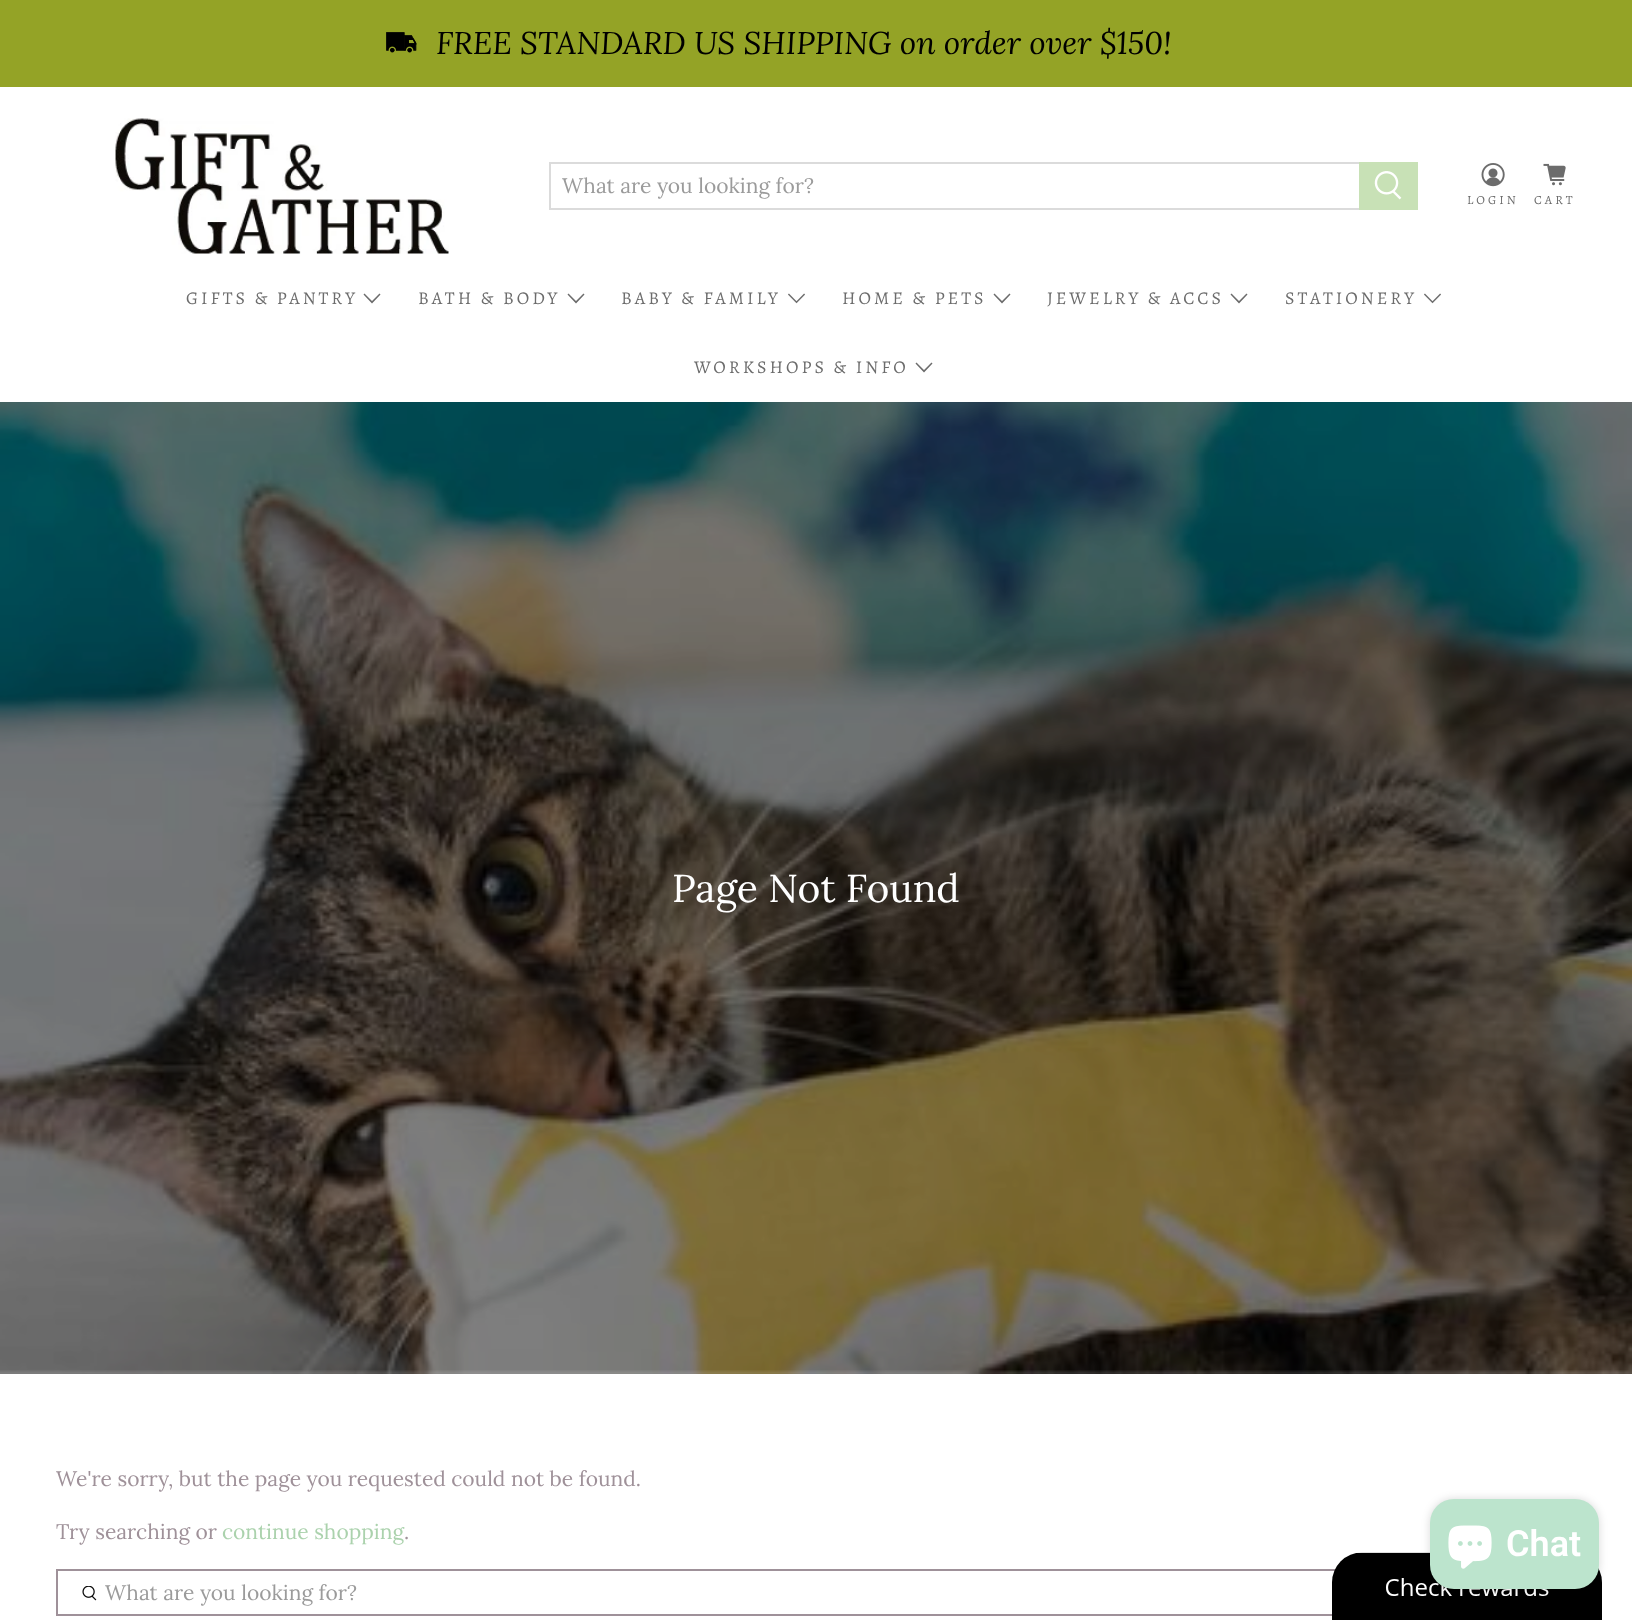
<!DOCTYPE html>
<meta charset="utf-8">
<style>body { margin: 0 } canvas { display: block }</style>
<canvas id="canvas" width="1632" height="1620"></canvas>
<img id="img1" src="img_01.png" hidden>
<img id="img2" src="img_02.png" hidden>
<img id="img3" src="img_03.png" hidden>
<img id="img4" src="img_04.png" hidden>
<img id="img5" src="img_05.png" hidden>
<img id="img6" src="img_06.png" hidden>
<img id="img7" src="img_07.png" hidden>
<img id="img8" src="img_08.png" hidden>
<img id="img9" src="img_10.png" hidden>
<img id="img10" src="img_09.png" hidden>
<script>
window.onload = function () {
	const canvas = document.getElementById("canvas");
	const ctx = canvas.getContext("2d");
	ctx.miterLimit = 4;
	ctx.fontKerning = "normal";
	function txt(s, x, y) {
		ctx.fillText(s, x, y);
	}
	function fill(x, y, w, h) {
		ctx.fillRect(x, y, w, h);
	}
	function round(x, y, w, h, r) {
		ctx.beginPath();
		ctx.roundRect(x, y, w, h, r);
		ctx.fill();
	}
	function img(id, x, y, w, h) {
		ctx.drawImage(document.getElementById(id), x, y, w, h);
	}

	ctx.fillStyle = "#FFFFFF";
	fill(0, 0, 1632, 1620);
	ctx.fillStyle = "#94A326";
	fill(0, 0, 1632, 87);
	img("img1", 386, 32, 31, 21);
	img("img2", 115, 118, 334, 136);
	ctx.strokeStyle = "#DBDBDB";
	ctx.lineWidth = 2;
	ctx.strokeRect(550, 163, 810, 46);
	ctx.fillStyle = "#C8E1B6";
	fill(1359, 162, 59, 48);
	img("img3", 1374, 171, 28, 29);
	img("img4", 1481, 163, 24, 24);
	img("img5", 1543, 163, 23, 23);
	ctx.fillStyle = "#6C6C6C";
	ctx.beginPath();
	ctx.moveTo(372, 303.5);
	ctx.lineTo(363.5, 294.5);
	ctx.lineTo(364.5, 293.5);
	ctx.lineTo(372, 301);
	ctx.lineTo(379.5, 293.5);
	ctx.lineTo(380.5, 294.5);
	ctx.closePath();
	ctx.fill();
	ctx.beginPath();
	ctx.moveTo(576, 303.5);
	ctx.lineTo(567.5, 294.5);
	ctx.lineTo(568.5, 293.5);
	ctx.lineTo(576, 301);
	ctx.lineTo(583.5, 293.5);
	ctx.lineTo(584.5, 294.5);
	ctx.closePath();
	ctx.fill();
	img("img6", 788, 293, 17, 11);
	ctx.beginPath();
	ctx.moveTo(1002, 303.5);
	ctx.lineTo(993.5, 294.5);
	ctx.lineTo(994.5, 293.5);
	ctx.lineTo(1002, 301);
	ctx.lineTo(1009.5, 293.5);
	ctx.lineTo(1010.5, 294.5);
	ctx.closePath();
	ctx.fill();
	ctx.beginPath();
	ctx.moveTo(1239, 303.5);
	ctx.lineTo(1230.5, 294.5);
	ctx.lineTo(1231.5, 293.5);
	ctx.lineTo(1239, 301);
	ctx.lineTo(1246.5, 293.5);
	ctx.lineTo(1247.5, 294.5);
	ctx.closePath();
	ctx.fill();
	img("img6", 1424, 293, 17, 11);
	ctx.beginPath();
	ctx.moveTo(924, 372.5);
	ctx.lineTo(915.5, 363.5);
	ctx.lineTo(916.5, 362.5);
	ctx.lineTo(924, 370);
	ctx.lineTo(931.5, 362.5);
	ctx.lineTo(932.5, 363.5);
	ctx.closePath();
	ctx.fill();
	img("img7", 0, 402, 1632, 972);
	ctx.strokeStyle = "#9F9199";
	ctx.strokeRect(57, 1570, 1519, 45);
	img("img8", 82, 1586, 15, 15);
	img("img9", 1332, 1552, 270, 68);
	ctx.fillStyle = "rgba(0, 0, 0, 0.15)";
	ctx.filter = "blur(4px)";
	ctx.beginPath();
	ctx.roundRect(1430, 1499, 169, 90, 24);
	ctx.fill();
	ctx.filter = "none";
	ctx.fillStyle = "#BCE4CD";
	round(1430, 1499, 169, 90, 24);
	img("img10", 1448, 1525, 44, 44);
	ctx.font = "italic 31.5px Lora";
	ctx.fillStyle = "#000000";
	txt("FREE STANDARD US SHIPPING on order over $150!", 436, 54);
	ctx.font = "21px Lora";
	ctx.fillStyle = "#9B9B9B";
	txt("What are you looking for?", 562, 193);
	ctx.letterSpacing = "3px";
	ctx.font = "12.5px Alegreya";
	ctx.fillStyle = "#6C6C6C";
	txt("LOGIN", 1467, 204);
	txt("CART", 1534, 204);
	ctx.font = "18px Alegreya";
	txt("GIFTS & PANTRY", 186, 304);
	txt("BATH & BODY", 418, 304);
	txt("BABY & FAMILY", 621, 304);
	txt("HOME & PETS", 842, 304);
	txt("JEWELRY & ACCS", 1047, 304);
	txt("STATIONERY", 1285, 304);
	txt("WORKSHOPS & INFO", 694, 373);
	ctx.letterSpacing = "0px";
	ctx.font = "39px Lora";
	ctx.fillStyle = "#FFFFFF";
	txt("Page Not Found", 672, 902);
	ctx.font = "21px Lora";
	ctx.fillStyle = "#9F9199";
	txt("We're sorry, but the page you requested could not be found.", 56, 1486);
	txt("Try searching or", 56, 1539);
	ctx.fillStyle = "#ABD2AD";
	txt("continue shopping", 222, 1539);
	ctx.fillStyle = "#9F9199";
	txt(".", 404, 1539);
	ctx.fillStyle = "#9B9B9B";
	txt("What are you looking for?", 105, 1600);
	ctx.font = "600 36px Roboto";
	ctx.fillStyle = "#FFFFFF";
	txt("Chat", 1506, 1556);
};
</script>
